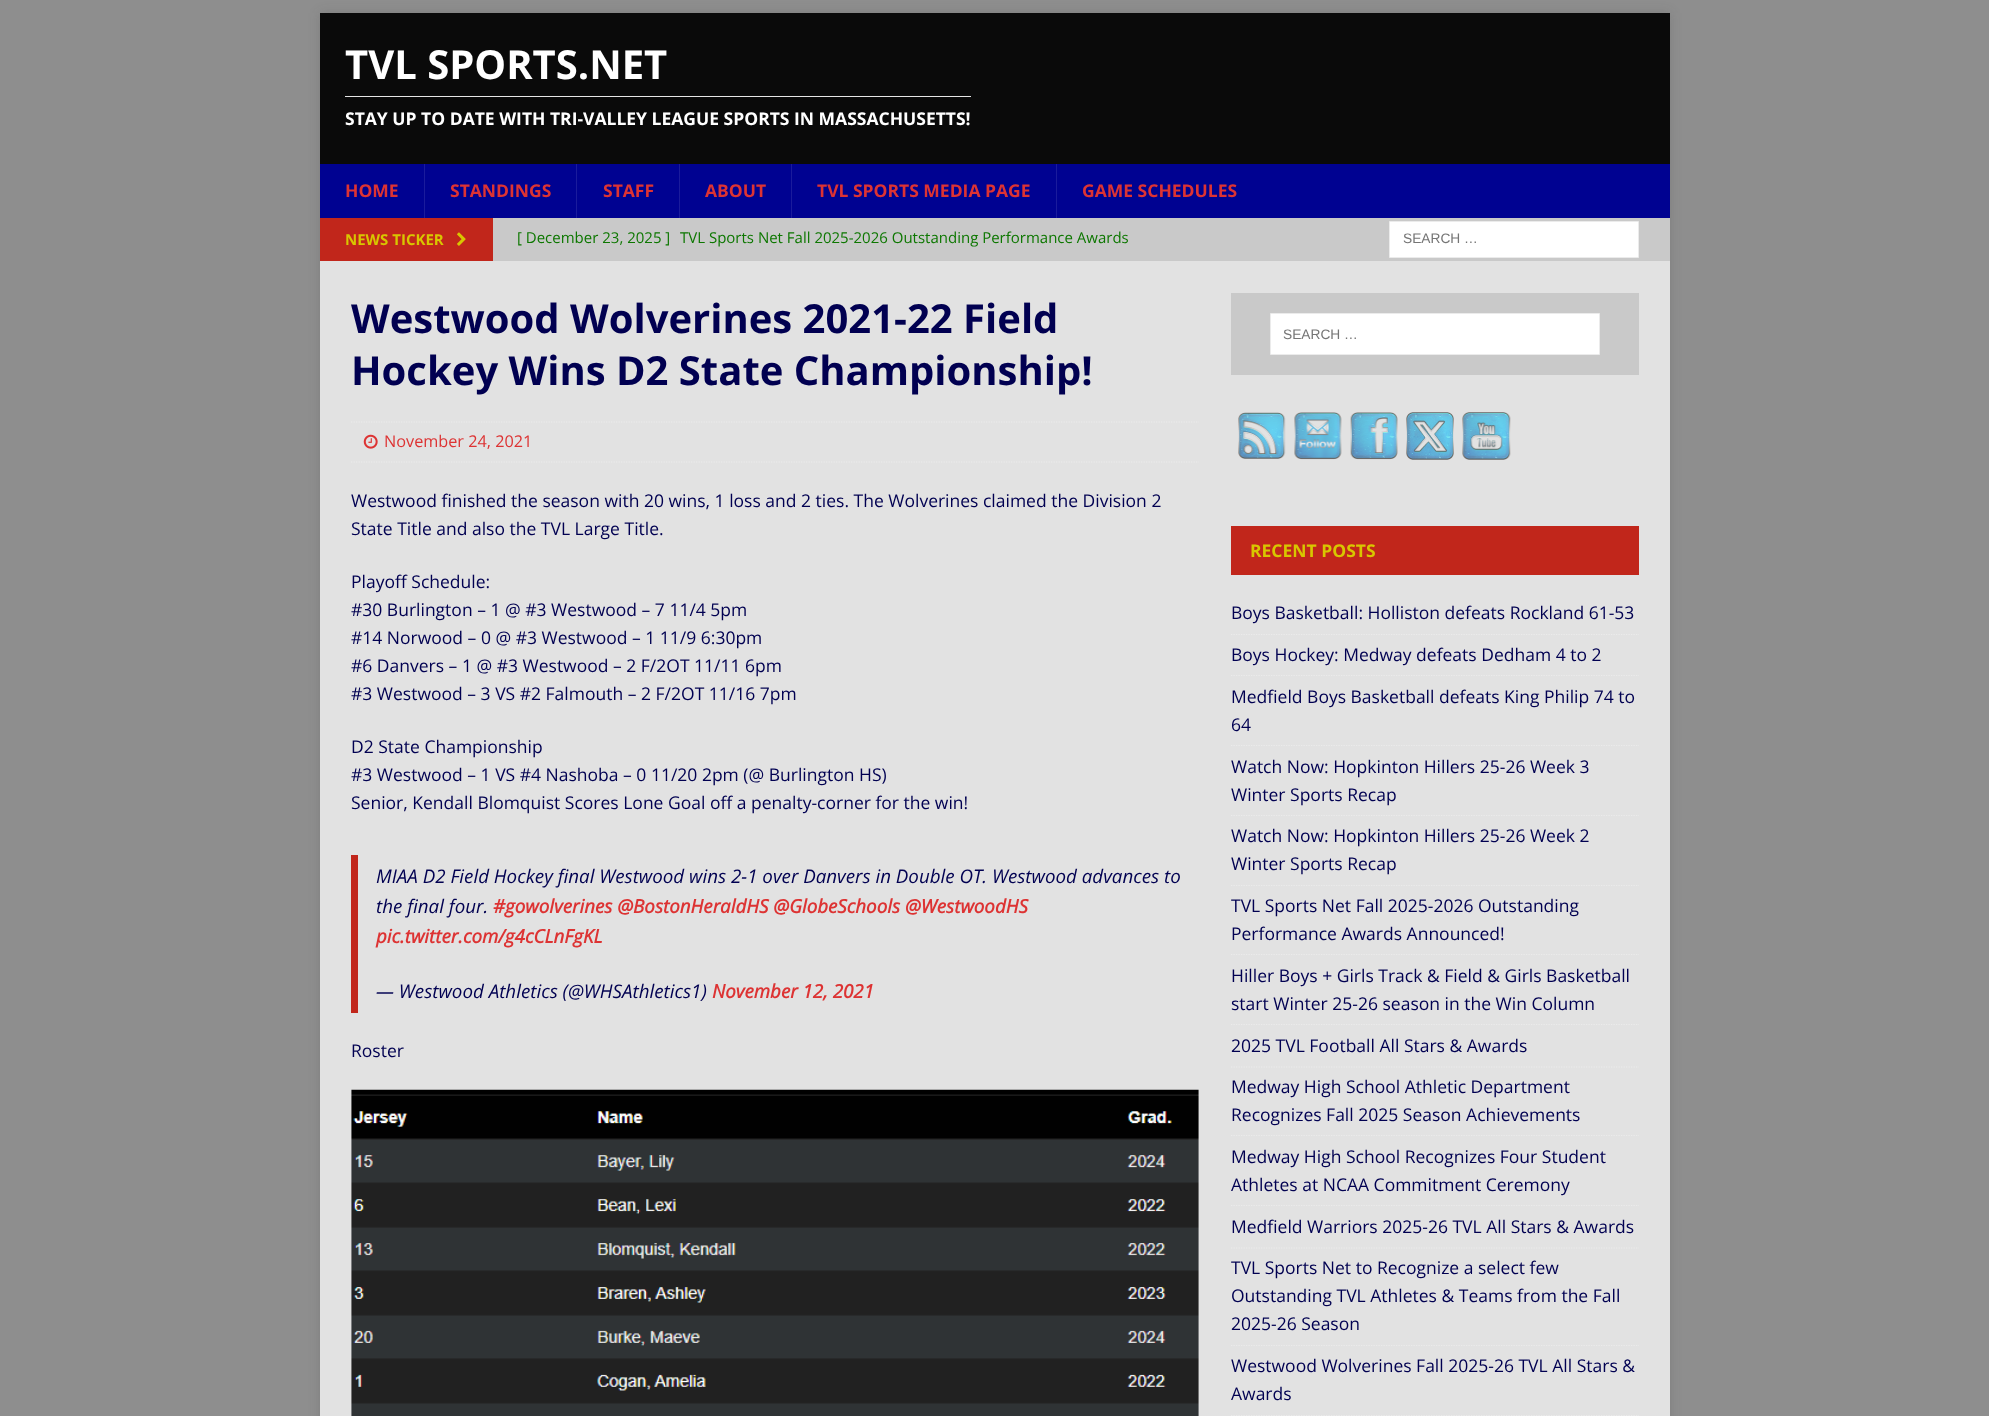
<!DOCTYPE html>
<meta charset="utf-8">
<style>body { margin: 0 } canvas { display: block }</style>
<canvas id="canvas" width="1989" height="1416"></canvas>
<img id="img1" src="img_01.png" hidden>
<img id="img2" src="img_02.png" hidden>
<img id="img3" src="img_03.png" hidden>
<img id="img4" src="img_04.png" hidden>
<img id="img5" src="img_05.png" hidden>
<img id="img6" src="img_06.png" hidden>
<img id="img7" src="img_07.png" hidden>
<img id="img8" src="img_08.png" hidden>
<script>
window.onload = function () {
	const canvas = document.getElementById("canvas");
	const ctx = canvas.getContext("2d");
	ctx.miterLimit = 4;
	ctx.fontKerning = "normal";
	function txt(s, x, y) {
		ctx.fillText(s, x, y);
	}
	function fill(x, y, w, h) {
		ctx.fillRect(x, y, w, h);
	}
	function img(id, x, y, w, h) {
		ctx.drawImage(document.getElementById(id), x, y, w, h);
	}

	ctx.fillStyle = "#8E8E8E";
	fill(0, 0, 1989, 1416);
	ctx.fillStyle = "rgba(50, 50, 50, 0.17)";
	ctx.filter = "blur(6px)";
	ctx.beginPath();
	ctx.rect(320, 13, 1350, 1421);
	ctx.fill();
	ctx.filter = "none";
	ctx.fillStyle = "#0A0A0A";
	fill(320, 13, 1350, 151);
	ctx.fillStyle = "#E5E5E5";
	fill(345, 96, 626, 1);
	ctx.fillStyle = "#000291";
	fill(320, 164, 1350, 54);
	ctx.fillStyle = "#1A1B9C";
	fill(424, 164, 1, 54);
	fill(576, 164, 1, 54);
	fill(679, 164, 1, 54);
	fill(791, 164, 1, 54);
	fill(1056, 164, 1, 54);
	ctx.fillStyle = "#C9C9C9";
	fill(493, 218, 1177, 43);
	ctx.fillStyle = "#C1261B";
	fill(320, 218, 173, 43);
	img("img1", 457, 232, 9, 14);
	ctx.fillStyle = "#FFFFFF";
	ctx.beginPath();
	ctx.rect(1389.5, 221.5, 249, 36);
	ctx.fill();
	ctx.strokeStyle = "#EBEBEB";
	ctx.stroke();
	ctx.fillStyle = "#E2E2E2";
	fill(320, 261, 1350, 1155);
	ctx.beginPath();
	ctx.moveTo(351, 422);
	ctx.lineTo(1199, 422);
	ctx.lineWidth = 1.2;
	ctx.setLineDash([1.25, 1.25]);
	ctx.stroke();
	ctx.beginPath();
	ctx.moveTo(351, 462);
	ctx.lineTo(1199, 462);
	ctx.stroke();
	img("img2", 363, 434, 15, 15);
	ctx.fillStyle = "#C1261B";
	fill(351, 855, 7, 158);
	img("img3", 351, 1089, 848, 327);
	ctx.fillStyle = "#C9C9C9";
	fill(1231, 293, 408, 82);
	ctx.fillStyle = "#FFFFFF";
	ctx.beginPath();
	ctx.rect(1270.5, 313.5, 329, 41);
	ctx.fill();
	ctx.lineWidth = 1;
	ctx.setLineDash([]);
	ctx.stroke();
	img("img4", 1238, 412, 48, 47);
	img("img5", 1294, 412, 48, 48);
	img("img6", 1350, 412, 48, 48);
	img("img7", 1406, 412, 48, 48);
	img("img8", 1462, 412, 49, 48);
	ctx.fillStyle = "#C1261B";
	fill(1231, 526, 408, 49);
	ctx.beginPath();
	ctx.moveTo(1231, 634.5);
	ctx.lineTo(1639, 634.5);
	ctx.lineWidth = 1.2;
	ctx.setLineDash([1.25, 1.25]);
	ctx.stroke();
	ctx.beginPath();
	ctx.moveTo(1231, 675.5);
	ctx.lineTo(1639, 675.5);
	ctx.stroke();
	ctx.beginPath();
	ctx.moveTo(1231, 745.5);
	ctx.lineTo(1639, 745.5);
	ctx.stroke();
	ctx.beginPath();
	ctx.moveTo(1231, 815.5);
	ctx.lineTo(1639, 815.5);
	ctx.stroke();
	ctx.beginPath();
	ctx.moveTo(1231, 885.5);
	ctx.lineTo(1639, 885.5);
	ctx.stroke();
	ctx.beginPath();
	ctx.moveTo(1231, 954.5);
	ctx.lineTo(1639, 954.5);
	ctx.stroke();
	ctx.beginPath();
	ctx.moveTo(1231, 1024.5);
	ctx.lineTo(1639, 1024.5);
	ctx.stroke();
	ctx.beginPath();
	ctx.moveTo(1231, 1067);
	ctx.lineTo(1639, 1067);
	ctx.stroke();
	ctx.beginPath();
	ctx.moveTo(1231, 1135.5);
	ctx.lineTo(1639, 1135.5);
	ctx.stroke();
	ctx.beginPath();
	ctx.moveTo(1231, 1205.5);
	ctx.lineTo(1639, 1205.5);
	ctx.stroke();
	ctx.beginPath();
	ctx.moveTo(1231, 1248);
	ctx.lineTo(1639, 1248);
	ctx.stroke();
	ctx.beginPath();
	ctx.moveTo(1231, 1345.5);
	ctx.lineTo(1639, 1345.5);
	ctx.stroke();
	ctx.beginPath();
	ctx.moveTo(1231, 1415.5);
	ctx.lineTo(1639, 1415.5);
	ctx.stroke();
	ctx.font = "bold 40px Open Sans";
	ctx.fillStyle = "#FFFFFF";
	txt("TVL SPORTS.NET", 345, 79);
	ctx.font = "bold 17.5px Open Sans";
	txt("STAY UP TO DATE WITH TRI-VALLEY LEAGUE SPORTS IN MASSACHUSETTS!", 345, 125);
	ctx.fillStyle = "#DD3333";
	txt("HOME", 345, 197);
	txt("STANDINGS", 450, 197);
	txt("STAFF", 603, 197);
	txt("ABOUT", 705, 197);
	txt("TVL SPORTS MEDIA PAGE", 817, 197);
	txt("GAME SCHEDULES", 1082, 197);
	ctx.font = "bold 15px Open Sans";
	ctx.fillStyle = "#D8C600";
	txt("NEWS TICKER", 345, 245);
	ctx.font = "15px Open Sans";
	ctx.fillStyle = "#0D7700";
	txt("[ December 23, 2025 ]", 517, 243);
	txt("TVL Sports Net Fall 2025-2026 Outstanding Performance Awards", 680, 243);
	ctx.font = "13.75px Liberation Sans";
	ctx.fillStyle = "#757575";
	txt("SEARCH …", 1403, 243);
	ctx.font = "bold 40px Open Sans";
	ctx.fillStyle = "#010051";
	txt("Westwood Wolverines 2021-22 Field", 351, 333);
	txt("Hockey Wins D2 State Championship!", 351, 385);
	ctx.font = "16.25px Open Sans";
	ctx.fillStyle = "#DD3333";
	txt("November 24, 2021", 384, 447);
	ctx.font = "17.5px Open Sans";
	ctx.fillStyle = "#010051";
	txt("Westwood finished the season with 20 wins, 1 loss and 2 ties. The Wolverines claimed the Division 2", 351, 507);
	txt("State Title and also the TVL Large Title.", 351, 535);
	txt("Playoff Schedule:", 351, 588);
	txt("#30 Burlington – 1 @ #3 Westwood – 7 11/4 5pm", 351, 616);
	txt("#14 Norwood – 0 @ #3 Westwood – 1 11/9 6:30pm", 351, 644);
	txt("#6 Danvers – 1 @ #3 Westwood – 2 F/2OT 11/11 6pm", 351, 672);
	txt("#3 Westwood – 3 VS #2 Falmouth – 2 F/2OT 11/16 7pm", 351, 700);
	txt("D2 State Championship", 351, 753);
	txt("#3 Westwood – 1 VS #4 Nashoba – 0 11/20 2pm (@ Burlington HS)", 351, 781);
	txt("Senior, Kendall Blomquist Scores Lone Goal off a penalty-corner for the win!", 351, 809);
	ctx.font = "italic 18.75px Open Sans";
	txt("MIAA D2 Field Hockey final Westwood wins 2-1 over Danvers in Double OT. Westwood advances to", 376, 883);
	txt("the final four.", 376, 913);
	ctx.font = "italic bold 18.75px Open Sans";
	ctx.fillStyle = "#DD3333";
	txt("#gowolverines @BostonHeraldHS @GlobeSchools @WestwoodHS", 493, 913);
	txt("pic.twitter.com/g4cCLnFgKL", 376, 943);
	ctx.font = "italic 18.75px Open Sans";
	ctx.fillStyle = "#010051";
	txt("— Westwood Athletics (@WHSAthletics1)", 376, 998);
	ctx.font = "italic bold 18.75px Open Sans";
	ctx.fillStyle = "#DD3333";
	txt("November 12, 2021", 712, 998);
	ctx.font = "17.5px Open Sans";
	ctx.fillStyle = "#010051";
	txt("Roster", 351, 1057);
	ctx.font = "13.75px Liberation Sans";
	ctx.fillStyle = "#757575";
	txt("SEARCH …", 1283, 339);
	ctx.font = "bold 17.5px Open Sans";
	ctx.fillStyle = "#D8C600";
	txt("RECENT POSTS", 1250, 557);
	ctx.font = "17.5px Open Sans";
	ctx.fillStyle = "#010051";
	txt("Boys Basketball: Holliston defeats Rockland 61-53", 1231, 619);
	txt("Boys Hockey: Medway defeats Dedham 4 to 2", 1231, 661);
	txt("Medfield Boys Basketball defeats King Philip 74 to", 1231, 703);
	txt("64", 1231, 731);
	txt("Watch Now: Hopkinton Hillers 25-26 Week 3", 1231, 773);
	txt("Winter Sports Recap", 1231, 801);
	txt("Watch Now: Hopkinton Hillers 25-26 Week 2", 1231, 842);
	txt("Winter Sports Recap", 1231, 870);
	txt("TVL Sports Net Fall 2025-2026 Outstanding", 1231, 912);
	txt("Performance Awards Announced!", 1231, 940);
	txt("Hiller Boys + Girls Track & Field & Girls Basketball", 1231, 982);
	txt("start Winter 25-26 season in the Win Column", 1231, 1010);
	txt("2025 TVL Football All Stars & Awards", 1231, 1052);
	txt("Medway High School Athletic Department", 1231, 1093);
	txt("Recognizes Fall 2025 Season Achievements", 1231, 1121);
	txt("Medway High School Recognizes Four Student", 1231, 1163);
	txt("Athletes at NCAA Commitment Ceremony", 1231, 1191);
	txt("Medfield Warriors 2025-26 TVL All Stars & Awards", 1231, 1233);
	txt("TVL Sports Net to Recognize a select few", 1231, 1274);
	txt("Outstanding TVL Athletes & Teams from the Fall", 1231, 1302);
	txt("2025-26 Season", 1231, 1330);
	txt("Westwood Wolverines Fall 2025-26 TVL All Stars &", 1231, 1372);
	txt("Awards", 1231, 1400);
};
</script>
